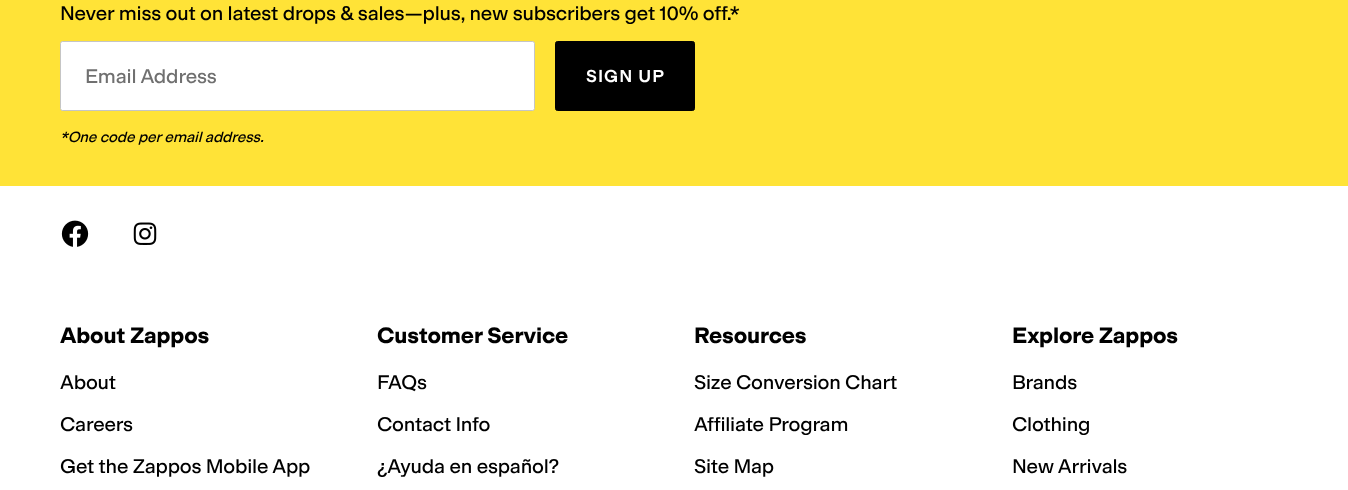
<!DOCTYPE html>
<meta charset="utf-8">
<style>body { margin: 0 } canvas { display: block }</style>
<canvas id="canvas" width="1348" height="490"></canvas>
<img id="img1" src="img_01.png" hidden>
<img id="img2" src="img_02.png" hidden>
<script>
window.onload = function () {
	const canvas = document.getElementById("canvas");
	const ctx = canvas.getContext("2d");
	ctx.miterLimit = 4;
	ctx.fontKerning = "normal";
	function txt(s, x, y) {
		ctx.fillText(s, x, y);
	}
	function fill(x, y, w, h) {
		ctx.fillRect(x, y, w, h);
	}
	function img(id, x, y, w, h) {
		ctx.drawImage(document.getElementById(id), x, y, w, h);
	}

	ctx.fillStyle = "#FFFFFF";
	fill(0, 0, 1348, 490);
	ctx.fillStyle = "#FFE337";
	fill(0, 0, 1348, 186);
	ctx.fillStyle = "#FFFFFF";
	ctx.beginPath();
	ctx.roundRect(60.5, 41.5, 474, 69, 2);
	ctx.fill();
	ctx.strokeStyle = "#C5C5C5";
	ctx.stroke();
	ctx.fillStyle = "#000000";
	ctx.beginPath();
	ctx.roundRect(555.5, 41.5, 139, 69, 2);
	ctx.fill();
	ctx.strokeStyle = "#000000";
	ctx.stroke();
	img("img1", 61, 220, 28, 27);
	img("img2", 133, 222, 24, 23);
	ctx.letterSpacing = "-0.2px";
	ctx.font = "20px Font";
	txt("Never miss out on latest drops & sales—plus, new subscribers get 10% off.*", 60, 20);
	ctx.letterSpacing = "-0.15px";
	ctx.fillStyle = "#707070";
	txt("Email Address", 85, 83);
	ctx.letterSpacing = "1px";
	ctx.font = "500 17.5px Font";
	ctx.fillStyle = "#FFFFFF";
	txt("SIGN UP", 586, 82);
	ctx.letterSpacing = "-0.15px";
	ctx.font = "italic 15px Font";
	ctx.fillStyle = "#000000";
	txt("*One code per email address.", 60, 142);
	ctx.font = "bold 22.5px Font";
	txt("About Zappos", 60, 343);
	ctx.letterSpacing = "-0.2px";
	ctx.font = "20px Font";
	txt("About", 60, 389);
	txt("Careers", 60, 431);
	txt("Get the Zappos Mobile App", 60, 473);
	ctx.letterSpacing = "-0.15px";
	ctx.font = "bold 22.5px Font";
	txt("Customer Service", 377, 343);
	ctx.letterSpacing = "-0.2px";
	ctx.font = "20px Font";
	txt("FAQs", 377, 389);
	txt("Contact Info", 377, 431);
	txt("¿Ayuda en español?", 377, 473);
	ctx.letterSpacing = "-0.15px";
	ctx.font = "bold 22.5px Font";
	txt("Resources", 694, 343);
	ctx.letterSpacing = "-0.2px";
	ctx.font = "20px Font";
	txt("Size Conversion Chart", 694, 389);
	txt("Affiliate Program", 694, 431);
	txt("Site Map", 694, 473);
	ctx.letterSpacing = "-0.15px";
	ctx.font = "bold 22.5px Font";
	txt("Explore Zappos", 1012, 343);
	ctx.letterSpacing = "-0.2px";
	ctx.font = "20px Font";
	txt("Brands", 1012, 389);
	txt("Clothing", 1012, 431);
	txt("New Arrivals", 1012, 473);
};
</script>
